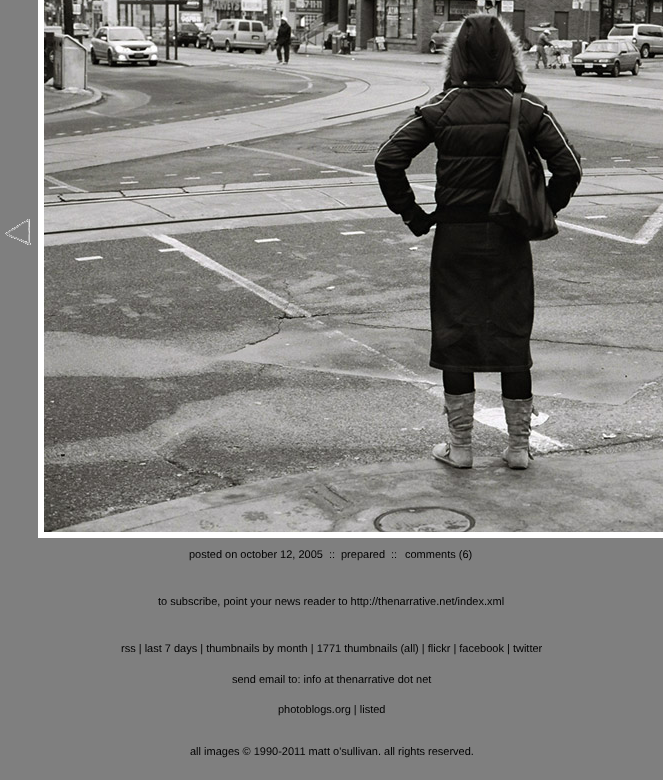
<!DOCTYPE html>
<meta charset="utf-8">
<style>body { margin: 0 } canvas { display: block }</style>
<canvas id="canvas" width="663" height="780"></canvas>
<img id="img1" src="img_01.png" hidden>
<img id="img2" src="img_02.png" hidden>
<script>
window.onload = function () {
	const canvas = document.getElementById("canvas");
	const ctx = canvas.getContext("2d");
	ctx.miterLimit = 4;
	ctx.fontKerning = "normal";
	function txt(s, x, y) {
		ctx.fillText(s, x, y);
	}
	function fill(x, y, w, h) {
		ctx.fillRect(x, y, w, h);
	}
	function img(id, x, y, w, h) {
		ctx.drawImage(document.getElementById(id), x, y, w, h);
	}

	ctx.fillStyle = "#7F7F7F";
	fill(0, 0, 663, 780);
	img("img1", 5, 219, 26, 26);
	ctx.fillStyle = "#FFFFFF";
	fill(38, 0, 625, 538);
	img("img2", 44, 0, 619, 532);
	ctx.font = "11px Liberation Sans";
	ctx.fillStyle = "#000000";
	txt("posted on october 12, 2005", 189, 558);
	txt("::", 329, 558);
	txt("prepared", 341, 558);
	txt("::", 391, 558);
	txt("comments (6)", 405, 558);
	txt("to subscribe, point your news reader to http://thenarrative.net/index.xml", 158, 605);
	txt("rss | last 7 days | thumbnails by month | 1771 thumbnails (all) | flickr | facebook | twitter", 121, 652);
	txt("send email to: info at thenarrative dot net", 232, 683);
	txt("photoblogs.org | listed", 278, 713);
	txt("all images © 1990-2011 matt o'sullivan. all rights reserved.", 190, 755);
};
</script>
